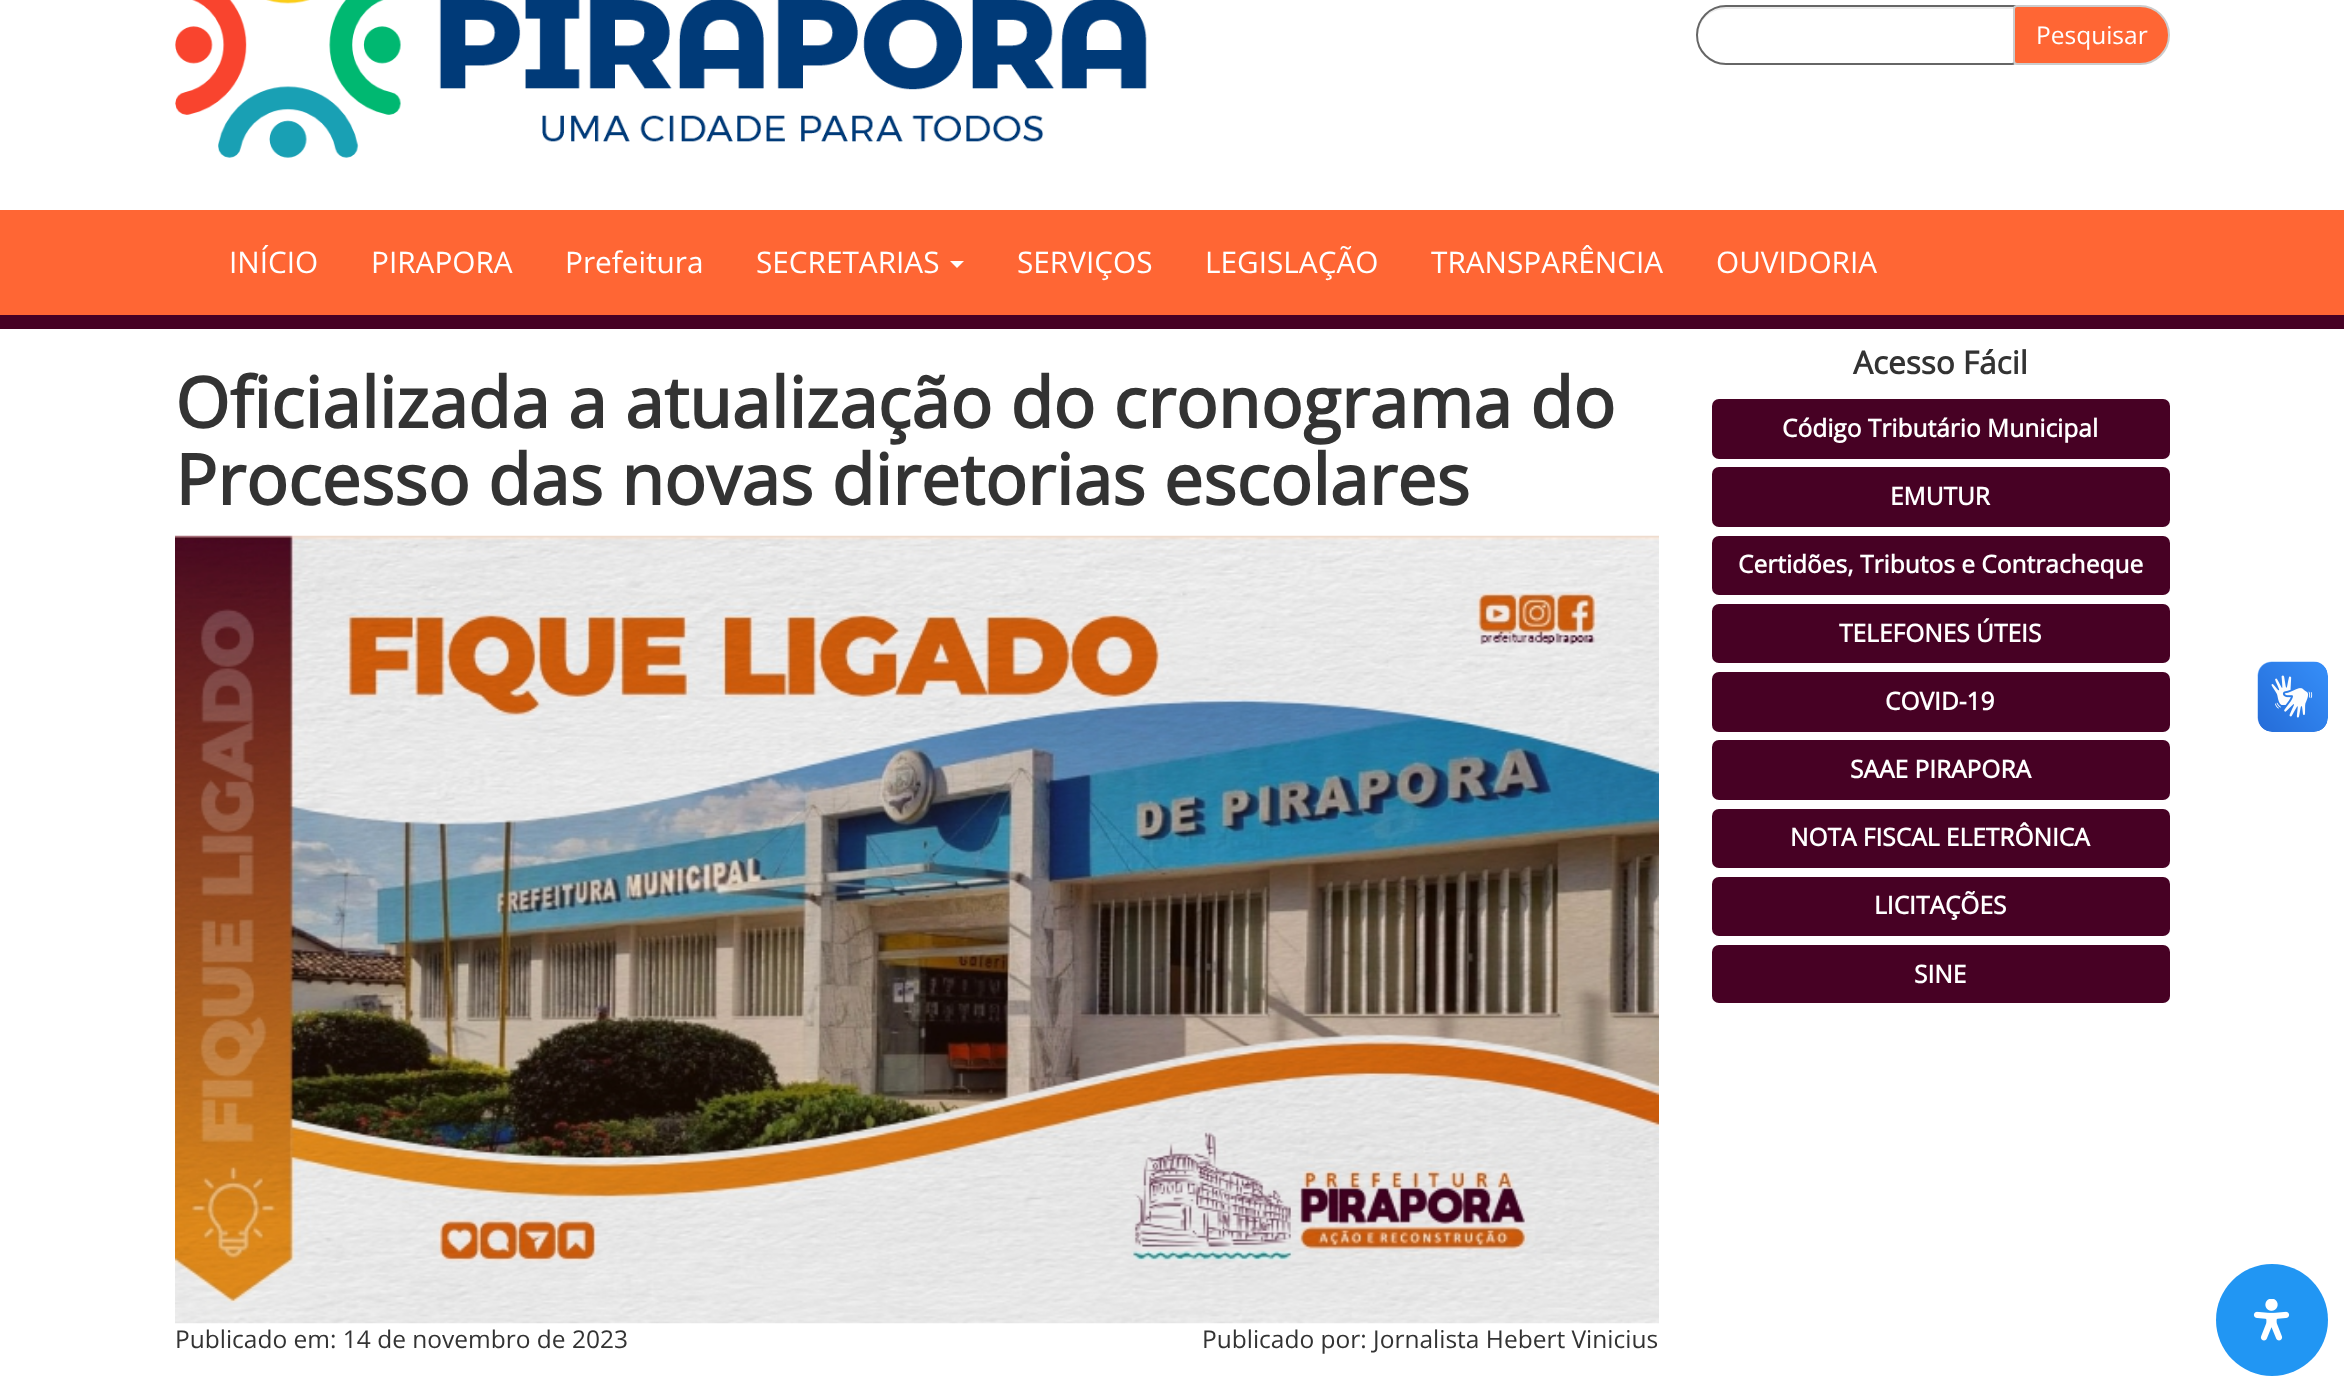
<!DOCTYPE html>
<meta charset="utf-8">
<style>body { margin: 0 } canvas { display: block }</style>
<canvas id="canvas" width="2344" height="1392"></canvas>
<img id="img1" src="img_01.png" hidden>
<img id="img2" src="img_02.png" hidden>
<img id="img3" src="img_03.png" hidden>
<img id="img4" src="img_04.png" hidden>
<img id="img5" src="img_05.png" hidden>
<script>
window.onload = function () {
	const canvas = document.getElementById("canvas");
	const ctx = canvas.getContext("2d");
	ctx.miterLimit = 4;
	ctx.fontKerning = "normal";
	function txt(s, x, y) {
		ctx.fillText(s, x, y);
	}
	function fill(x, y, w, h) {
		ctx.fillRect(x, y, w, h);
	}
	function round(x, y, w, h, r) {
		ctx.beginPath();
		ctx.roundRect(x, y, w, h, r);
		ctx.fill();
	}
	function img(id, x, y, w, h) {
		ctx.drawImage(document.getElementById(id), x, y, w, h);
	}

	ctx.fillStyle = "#FFFFFF";
	fill(0, 0, 2344, 1392);
	img("img1", 175, 0, 972, 158);
	ctx.fillStyle = "#ECECEC";
	ctx.beginPath();
	ctx.moveTo(1726, 9);
	ctx.lineTo(2014, 9);
	ctx.lineTo(2014, 7);
	ctx.lineTo(1726, 7);
	ctx.bezierCurveTo(1711, 7, 1698, 20, 1698, 35);
	ctx.lineTo(1698, 36);
	ctx.bezierCurveTo(1699, 20, 1710, 9, 1726, 9);
	ctx.closePath();
	ctx.fill();
	ctx.beginPath();
	ctx.roundRect(1697, 6, 318, 58, [29, 0, 3, 29]);
	ctx.strokeStyle = "#666666";
	ctx.lineWidth = 2;
	ctx.stroke();
	ctx.fillStyle = "#FF6634";
	ctx.beginPath();
	ctx.roundRect(2014, 6, 155, 58, [3, 29, 29, 3]);
	ctx.fill();
	ctx.strokeStyle = "#CCCCCC";
	ctx.stroke();
	fill(0, 210, 2344, 105);
	ctx.fillStyle = "#470124";
	fill(0, 315, 2344, 14);
	ctx.fillStyle = "#FFFFFF";
	ctx.beginPath();
	ctx.moveTo(950, 261);
	ctx.lineTo(964, 261);
	ctx.lineTo(957, 268);
	ctx.closePath();
	ctx.fill();
	img("img2", 175, 535, 1484, 789);
	ctx.fillStyle = "#470124";
	round(1712, 399, 458, 60, 7);
	round(1712, 467, 458, 60, 7);
	round(1712, 536, 458, 59, 7);
	round(1712, 604, 458, 59, 7);
	round(1712, 672, 458, 60, 7);
	round(1712, 740, 458, 60, 7);
	round(1712, 809, 458, 59, 7);
	round(1712, 877, 458, 59, 7);
	round(1712, 945, 458, 58, 7);
	img("img3", 2257, 661, 71, 71);
	img("img4", 2258, 662, 70, 70);
	ctx.fillStyle = "#2196F3";
	ctx.beginPath();
	ctx.arc(2272, 1320, 56, 0, Math.PI * 2);
	ctx.fill();
	img("img5", 2253, 1299, 37, 42);
	ctx.font = "24.5px Open Sans";
	ctx.fillStyle = "#FFFFFF";
	txt("Pesquisar", 2036, 44);
	ctx.font = "29.75px Open Sans";
	txt("INÍCIO", 229, 273);
	txt("PIRAPORA", 371, 273);
	txt("Prefeitura", 565, 273);
	txt("SECRETARIAS", 756, 273);
	txt("SERVIÇOS", 1017, 273);
	txt("LEGISLAÇÃO", 1205, 273);
	txt("TRANSPARÊNCIA", 1431, 273);
	txt("OUVIDORIA", 1716, 273);
	ctx.font = "bold 70px Open Sans";
	ctx.fillStyle = "#333333";
	txt("Oficializada a atualização do cronograma do", 175, 428);
	txt("Processo das novas diretorias escolares", 175, 505);
	ctx.font = "24.5px Open Sans";
	txt("Publicado em: 14 de novembro de 2023", 175, 1348);
	txt("Publicado por: Jornalista Hebert Vinicius", 1202, 1348);
	ctx.font = "bold 31.5px Open Sans";
	txt("Acesso Fácil", 1853, 374);
	ctx.font = "bold 24.5px Open Sans";
	ctx.fillStyle = "#FFFFFF";
	txt("Código Tributário Municipal", 1782, 437);
	txt("EMUTUR", 1890, 505);
	txt("Certidões, Tributos e Contracheque", 1738, 573);
	txt("TELEFONES ÚTEIS", 1839, 642);
	txt("COVID-19", 1885, 710);
	txt("SAAE PIRAPORA", 1850, 778);
	txt("NOTA FISCAL ELETRÔNICA", 1790, 846);
	txt("LICITAÇÕES", 1874, 914);
	txt("SINE", 1914, 983);
};
</script>
